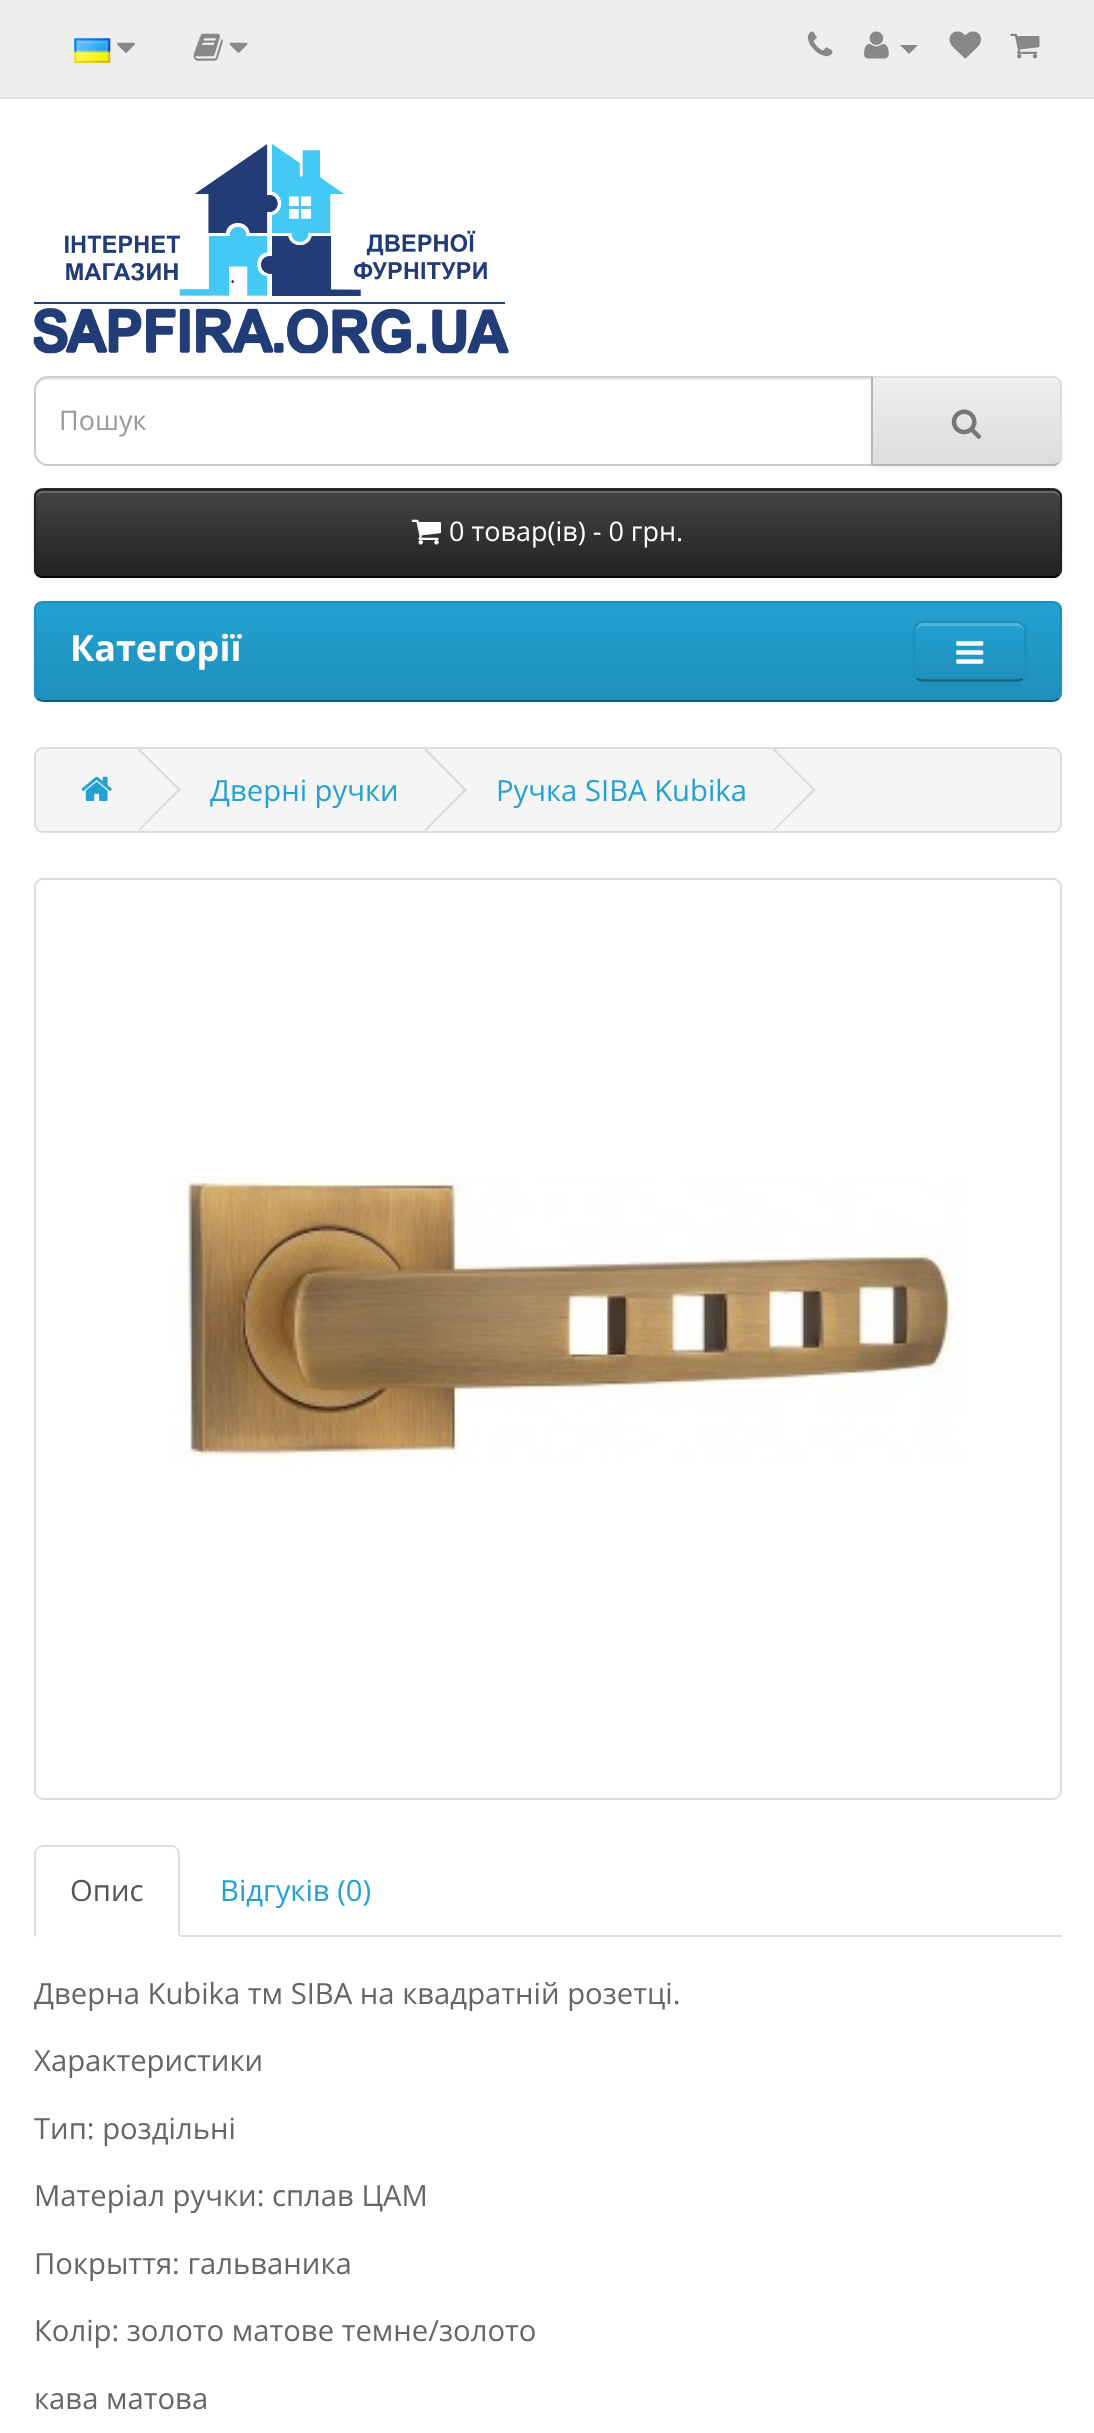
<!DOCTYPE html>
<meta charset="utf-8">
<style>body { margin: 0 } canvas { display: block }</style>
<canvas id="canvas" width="1094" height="2433"></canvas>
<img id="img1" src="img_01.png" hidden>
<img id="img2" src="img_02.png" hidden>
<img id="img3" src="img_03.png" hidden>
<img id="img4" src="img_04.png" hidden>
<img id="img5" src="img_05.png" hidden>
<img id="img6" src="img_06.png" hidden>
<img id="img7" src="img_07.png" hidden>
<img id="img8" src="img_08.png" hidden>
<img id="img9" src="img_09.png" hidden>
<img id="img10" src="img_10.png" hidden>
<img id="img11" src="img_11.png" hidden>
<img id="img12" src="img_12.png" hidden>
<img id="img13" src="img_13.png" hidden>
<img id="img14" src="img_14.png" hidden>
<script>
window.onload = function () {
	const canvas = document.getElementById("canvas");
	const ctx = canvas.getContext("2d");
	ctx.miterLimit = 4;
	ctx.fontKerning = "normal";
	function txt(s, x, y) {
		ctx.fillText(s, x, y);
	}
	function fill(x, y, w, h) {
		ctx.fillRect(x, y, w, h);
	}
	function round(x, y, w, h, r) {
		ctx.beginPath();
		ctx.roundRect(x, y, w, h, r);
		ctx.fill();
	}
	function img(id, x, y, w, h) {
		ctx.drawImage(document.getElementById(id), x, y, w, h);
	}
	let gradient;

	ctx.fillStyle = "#FFFFFF";
	fill(0, 0, 1094, 2433);
	ctx.fillStyle = "#EEEEEE";
	fill(0, 0, 1094, 97);
	ctx.fillStyle = "#E2E2E2";
	fill(0, 97, 1094, 2);
	img("img1", 74, 38, 37, 25);
	img("img2", 117, 42, 18, 11);
	img("img3", 193, 33, 30, 28);
	img("img4", 229, 42, 19, 11);
	img("img5", 807, 31, 26, 26);
	img("img6", 864, 31, 25, 28);
	ctx.fillStyle = "#888888";
	ctx.beginPath();
	ctx.moveTo(900, 45);
	ctx.lineTo(918, 45);
	ctx.lineTo(909, 54);
	ctx.closePath();
	ctx.fill();
	img("img7", 949, 31, 32, 28);
	img("img8", 1010, 33, 30, 26);
	img("img9", 33, 144, 476, 210);
	ctx.fillStyle = "#ECECEC";
	ctx.beginPath();
	ctx.moveTo(47, 380);
	ctx.lineTo(871, 380);
	ctx.lineTo(871, 378);
	ctx.lineTo(47, 378);
	ctx.bezierCurveTo(39, 378, 36, 385, 36, 392);
	ctx.bezierCurveTo(36, 385, 41, 380, 47, 380);
	ctx.closePath();
	ctx.fill();
	ctx.beginPath();
	ctx.roundRect(35, 377, 837, 88, [13, 0, 0, 13]);
	ctx.strokeStyle = "#CCCCCC";
	ctx.lineWidth = 2;
	ctx.stroke();
	ctx.fillStyle = "rgba(0, 0, 0, 0.05)";
	ctx.filter = "blur(2px)";
	ctx.beginPath();
	ctx.roundRect(871, 378, 191, 90, 9);
	ctx.fill();
	ctx.filter = "none";
	ctx.fillStyle = "#E7E7E7";
	ctx.beginPath();
	ctx.roundRect(871, 376, 191, 90, [0, 9, 9, 0]);
	ctx.fill();
	ctx.save();
	ctx.beginPath();
	ctx.roundRect(871, 376, 191, 90, [0, 9, 9, 0]);
	ctx.clip();
	gradient = ctx.createLinearGradient(966, 378, 966, 464);
	gradient.addColorStop(0, "#EEEEEE");
	gradient.addColorStop(1, "#DDDDDD");
	ctx.fillStyle = gradient;
	fill(873, 378, 189, 86);
	ctx.restore();
	ctx.fillStyle = "#F1F1F1";
	ctx.beginPath();
	ctx.moveTo(873, 380);
	ctx.lineTo(1053, 380);
	ctx.bezierCurveTo(1057, 380, 1060, 383, 1060, 387);
	ctx.lineTo(1060, 385);
	ctx.bezierCurveTo(1060, 381, 1057, 378, 1053, 378);
	ctx.lineTo(873, 378);
	ctx.closePath();
	ctx.fill();
	ctx.fillStyle = "#DDDDDD";
	ctx.beginPath();
	ctx.moveTo(871, 376);
	ctx.lineTo(873, 378);
	ctx.lineTo(1053, 378);
	ctx.bezierCurveTo(1055, 378, 1057, 379, 1058, 380);
	ctx.lineTo(1059, 379);
	ctx.bezierCurveTo(1058, 377, 1055, 376, 1053, 376);
	ctx.closePath();
	ctx.fill();
	ctx.beginPath();
	ctx.moveTo(1059, 379);
	ctx.bezierCurveTo(1061, 380, 1062, 382, 1062, 385);
	ctx.lineTo(1062, 457);
	ctx.bezierCurveTo(1062, 459, 1061, 462, 1059, 463);
	ctx.lineTo(1058, 462);
	ctx.bezierCurveTo(1059, 460, 1060, 459, 1060, 457);
	ctx.lineTo(1060, 385);
	ctx.bezierCurveTo(1060, 383, 1059, 381, 1058, 380);
	ctx.closePath();
	ctx.fill();
	ctx.fillStyle = "#B3B3B3";
	ctx.beginPath();
	ctx.moveTo(871, 466);
	ctx.lineTo(873, 464);
	ctx.lineTo(1053, 464);
	ctx.bezierCurveTo(1055, 464, 1057, 463, 1058, 462);
	ctx.lineTo(1059, 463);
	ctx.bezierCurveTo(1058, 464, 1057, 465, 1055, 466);
	ctx.closePath();
	ctx.fill();
	ctx.fillStyle = "#B7B7B7";
	ctx.beginPath();
	ctx.moveTo(873, 378);
	ctx.lineTo(871, 376);
	ctx.lineTo(871, 466);
	ctx.lineTo(873, 464);
	ctx.closePath();
	ctx.fill();
	img("img10", 951, 409, 30, 30);
	ctx.fillStyle = "rgba(0, 0, 0, 0.05)";
	ctx.filter = "blur(2px)";
	ctx.beginPath();
	ctx.roundRect(34, 491, 1028, 90, 9);
	ctx.fill();
	ctx.filter = "none";
	ctx.fillStyle = "#363636";
	round(34, 488, 1028, 90, 9);
	ctx.save();
	ctx.beginPath();
	ctx.roundRect(34, 488, 1028, 90, 9);
	ctx.clip();
	gradient = ctx.createLinearGradient(548, 490, 548, 576);
	gradient.addColorStop(0, "#444444");
	gradient.addColorStop(1, "#222222");
	ctx.fillStyle = gradient;
	fill(34, 491, 1028, 85);
	ctx.restore();
	ctx.fillStyle = "#696969";
	ctx.beginPath();
	ctx.moveTo(43, 493);
	ctx.lineTo(1053, 493);
	ctx.bezierCurveTo(1057, 493, 1060, 496, 1060, 500);
	ctx.lineTo(1060, 498);
	ctx.bezierCurveTo(1060, 494, 1057, 491, 1053, 491);
	ctx.lineTo(43, 491);
	ctx.bezierCurveTo(39, 491, 36, 494, 36, 498);
	ctx.lineTo(36, 500);
	ctx.bezierCurveTo(36, 496, 39, 493, 43, 493);
	ctx.closePath();
	ctx.fill();
	ctx.beginPath();
	ctx.moveTo(1058.5, 575);
	ctx.bezierCurveTo(1057, 576.5, 1055, 577, 1053, 577);
	ctx.lineTo(43, 577);
	ctx.bezierCurveTo(40.5, 577, 38.5, 576.5, 37, 575);
	ctx.strokeStyle = "#000000";
	ctx.lineWidth = 2.2;
	ctx.stroke();
	ctx.beginPath();
	ctx.moveTo(37, 575);
	ctx.bezierCurveTo(35.5, 573.5, 35, 571.5, 35, 569);
	ctx.lineTo(35, 497);
	ctx.bezierCurveTo(35, 495, 35.5, 493, 37, 491.5);
	ctx.bezierCurveTo(38.5, 490, 40.5, 489.5, 43, 489.5);
	ctx.lineTo(1053, 489.5);
	ctx.bezierCurveTo(1055, 489.5, 1057, 490, 1058.5, 491.5);
	ctx.bezierCurveTo(1060, 493, 1061, 495, 1061, 497);
	ctx.lineTo(1061, 569);
	ctx.bezierCurveTo(1061, 571.5, 1060, 573.5, 1058.5, 575);
	ctx.strokeStyle = "#222222";
	ctx.stroke();
	img("img11", 411, 519, 30, 26);
	ctx.save();
	ctx.beginPath();
	ctx.roundRect(34, 601, 1028, 101, 9);
	ctx.clip();
	gradient = ctx.createLinearGradient(548, 603, 548, 700);
	gradient.addColorStop(0, "#23A1D1");
	gradient.addColorStop(1, "#1F90BB");
	ctx.fillStyle = gradient;
	fill(34, 603, 1028, 97);
	ctx.restore();
	ctx.beginPath();
	ctx.moveTo(1058.5, 698.5);
	ctx.bezierCurveTo(1057, 700, 1055, 701, 1053, 701);
	ctx.lineTo(43, 701);
	ctx.bezierCurveTo(40.5, 701, 38.5, 700, 37, 698.5);
	ctx.strokeStyle = "#145E7A";
	ctx.stroke();
	ctx.beginPath();
	ctx.moveTo(37, 698.5);
	ctx.bezierCurveTo(35.5, 697, 35, 695, 35, 693);
	ctx.lineTo(35, 610);
	ctx.bezierCurveTo(35, 607.5, 35.5, 605.5, 37, 604);
	ctx.bezierCurveTo(38.5, 602.5, 40.5, 602, 43, 602);
	ctx.lineTo(1053, 602);
	ctx.bezierCurveTo(1055, 602, 1057, 602.5, 1058.5, 604);
	ctx.bezierCurveTo(1060, 605.5, 1061, 607.5, 1061, 610);
	ctx.lineTo(1061, 693);
	ctx.bezierCurveTo(1061, 695, 1060, 697, 1058.5, 698.5);
	ctx.strokeStyle = "#1F90BB";
	ctx.stroke();
	ctx.fillStyle = "rgba(0, 0, 0, 0.05)";
	ctx.filter = "blur(2px)";
	ctx.beginPath();
	ctx.roundRect(914, 623, 112, 61, 9);
	ctx.fill();
	ctx.filter = "none";
	ctx.fillStyle = "#229AC8";
	round(914, 621, 112, 61, 9);
	ctx.save();
	ctx.beginPath();
	ctx.roundRect(914, 621, 112, 61, 9);
	ctx.clip();
	gradient = ctx.createLinearGradient(970, 623, 970, 680);
	gradient.addColorStop(0, "#23A1D1");
	gradient.addColorStop(1, "#1F90BB");
	ctx.fillStyle = gradient;
	fill(914, 623, 112, 57);
	ctx.restore();
	ctx.fillStyle = "rgba(255, 255, 255, 0.2)";
	ctx.beginPath();
	ctx.moveTo(922, 626);
	ctx.lineTo(1017, 626);
	ctx.bezierCurveTo(1021, 626, 1024, 629, 1024, 632);
	ctx.bezierCurveTo(1024, 619, 1011, 623, 1001, 623);
	ctx.lineTo(939, 623);
	ctx.bezierCurveTo(929, 623, 916, 619, 916, 632);
	ctx.bezierCurveTo(916, 629, 919, 626, 922, 626);
	ctx.closePath();
	ctx.fill();
	ctx.beginPath();
	ctx.moveTo(1022.5, 678.5);
	ctx.bezierCurveTo(1021, 680, 1019, 680.5, 1017, 680.5);
	ctx.lineTo(922.5, 680.5);
	ctx.bezierCurveTo(920.5, 680.5, 918.5, 680, 917, 678.5);
	ctx.strokeStyle = "#145E7A";
	ctx.stroke();
	ctx.beginPath();
	ctx.moveTo(917, 678.5);
	ctx.bezierCurveTo(915.5, 677, 914.5, 675, 914.5, 673);
	ctx.lineTo(914.5, 630);
	ctx.bezierCurveTo(914.5, 628, 915.5, 626, 917, 624.5);
	ctx.bezierCurveTo(918.5, 623, 920.5, 622, 922.5, 622);
	ctx.lineTo(1017, 622);
	ctx.bezierCurveTo(1019, 622, 1021, 623, 1022.5, 624.5);
	ctx.bezierCurveTo(1024, 626, 1025, 628, 1025, 630);
	ctx.lineTo(1025, 673);
	ctx.bezierCurveTo(1025, 675, 1024, 677, 1022.5, 678.5);
	ctx.strokeStyle = "#1F90BB";
	ctx.stroke();
	img("img12", 956, 641, 28, 23);
	ctx.fillStyle = "#F5F5F5";
	ctx.beginPath();
	ctx.roundRect(35, 748, 1026, 84, 8);
	ctx.fill();
	ctx.strokeStyle = "#DDDDDD";
	ctx.lineWidth = 2;
	ctx.stroke();
	img("img13", 81, 776, 31, 25);
	ctx.fillStyle = "#DDDDDD";
	ctx.beginPath();
	ctx.moveTo(138, 750);
	ctx.lineTo(139, 748);
	ctx.lineTo(181, 790);
	ctx.lineTo(179, 791);
	ctx.closePath();
	ctx.fill();
	ctx.beginPath();
	ctx.moveTo(138, 830);
	ctx.lineTo(179, 788);
	ctx.lineTo(181, 790);
	ctx.lineTo(139, 831);
	ctx.closePath();
	ctx.fill();
	ctx.beginPath();
	ctx.moveTo(424, 750);
	ctx.lineTo(426, 748);
	ctx.lineTo(467, 790);
	ctx.lineTo(465, 791);
	ctx.closePath();
	ctx.fill();
	ctx.beginPath();
	ctx.moveTo(424, 830);
	ctx.lineTo(465, 788);
	ctx.lineTo(467, 790);
	ctx.lineTo(426, 831);
	ctx.closePath();
	ctx.fill();
	ctx.beginPath();
	ctx.moveTo(773, 750);
	ctx.lineTo(774, 748);
	ctx.lineTo(816, 790);
	ctx.lineTo(814, 791);
	ctx.closePath();
	ctx.fill();
	ctx.beginPath();
	ctx.moveTo(773, 830);
	ctx.lineTo(814, 788);
	ctx.lineTo(816, 790);
	ctx.lineTo(774, 831);
	ctx.closePath();
	ctx.fill();
	ctx.beginPath();
	ctx.roundRect(35, 879, 1026, 920, 8);
	ctx.stroke();
	img("img14", 173, 1176, 790, 289);
	fill(180, 1935, 882, 2);
	ctx.beginPath();
	ctx.moveTo(43, 1845);
	ctx.bezierCurveTo(40, 1845, 38, 1846, 37, 1848);
	ctx.lineTo(38, 1849);
	ctx.lineTo(42, 1847);
	ctx.lineTo(172, 1847);
	ctx.bezierCurveTo(173, 1847, 175, 1848, 176, 1849);
	ctx.lineTo(177, 1848);
	ctx.bezierCurveTo(176, 1846, 174, 1845, 171, 1845);
	ctx.closePath();
	ctx.fill();
	ctx.beginPath();
	ctx.moveTo(180, 1937);
	ctx.lineTo(180, 1854);
	ctx.bezierCurveTo(180, 1852, 179, 1849, 177, 1848);
	ctx.lineTo(176, 1849);
	ctx.bezierCurveTo(177, 1850, 178, 1852, 178, 1854);
	ctx.lineTo(178, 1935);
	ctx.closePath();
	ctx.fill();
	ctx.beginPath();
	ctx.moveTo(37, 1848);
	ctx.bezierCurveTo(35, 1849, 34, 1852, 34, 1854);
	ctx.lineTo(34, 1937);
	ctx.lineTo(36, 1935);
	ctx.lineTo(36, 1854);
	ctx.bezierCurveTo(36, 1852, 37, 1850, 38, 1849);
	ctx.closePath();
	ctx.fill();
	ctx.font = "27px Open Sans";
	ctx.fillStyle = "#999999";
	txt("Пошук", 59, 430);
	ctx.fillStyle = "#FFFFFF";
	txt("0 товар(ів) - 0 грн.", 449, 541);
	ctx.font = "bold 36px Open Sans";
	txt("Категорії", 70, 661);
	ctx.font = "29.25px Open Sans";
	ctx.fillStyle = "#23A1D1";
	txt("Дверні ручки", 210, 801);
	txt("Ручка SIBA Kubika", 496, 801);
	ctx.fillStyle = "#555555";
	txt("Опис", 70, 1901);
	ctx.fillStyle = "#23A1D1";
	txt("Відгуків (0)", 220, 1901);
	ctx.fillStyle = "#666666";
	txt("Дверна Kubika тм SIBA на квадратній розетці.", 34, 2004);
	txt("Характеристики", 34, 2071);
	txt("Тип: роздільні", 34, 2139);
	txt("Матеріал ручки: сплав ЦАМ", 34, 2206);
	txt("Покрыття: гальваника", 34, 2274);
	txt("Колір: золото матове темне/золото", 34, 2341);
	txt("кава матова", 34, 2409);
};
</script>
